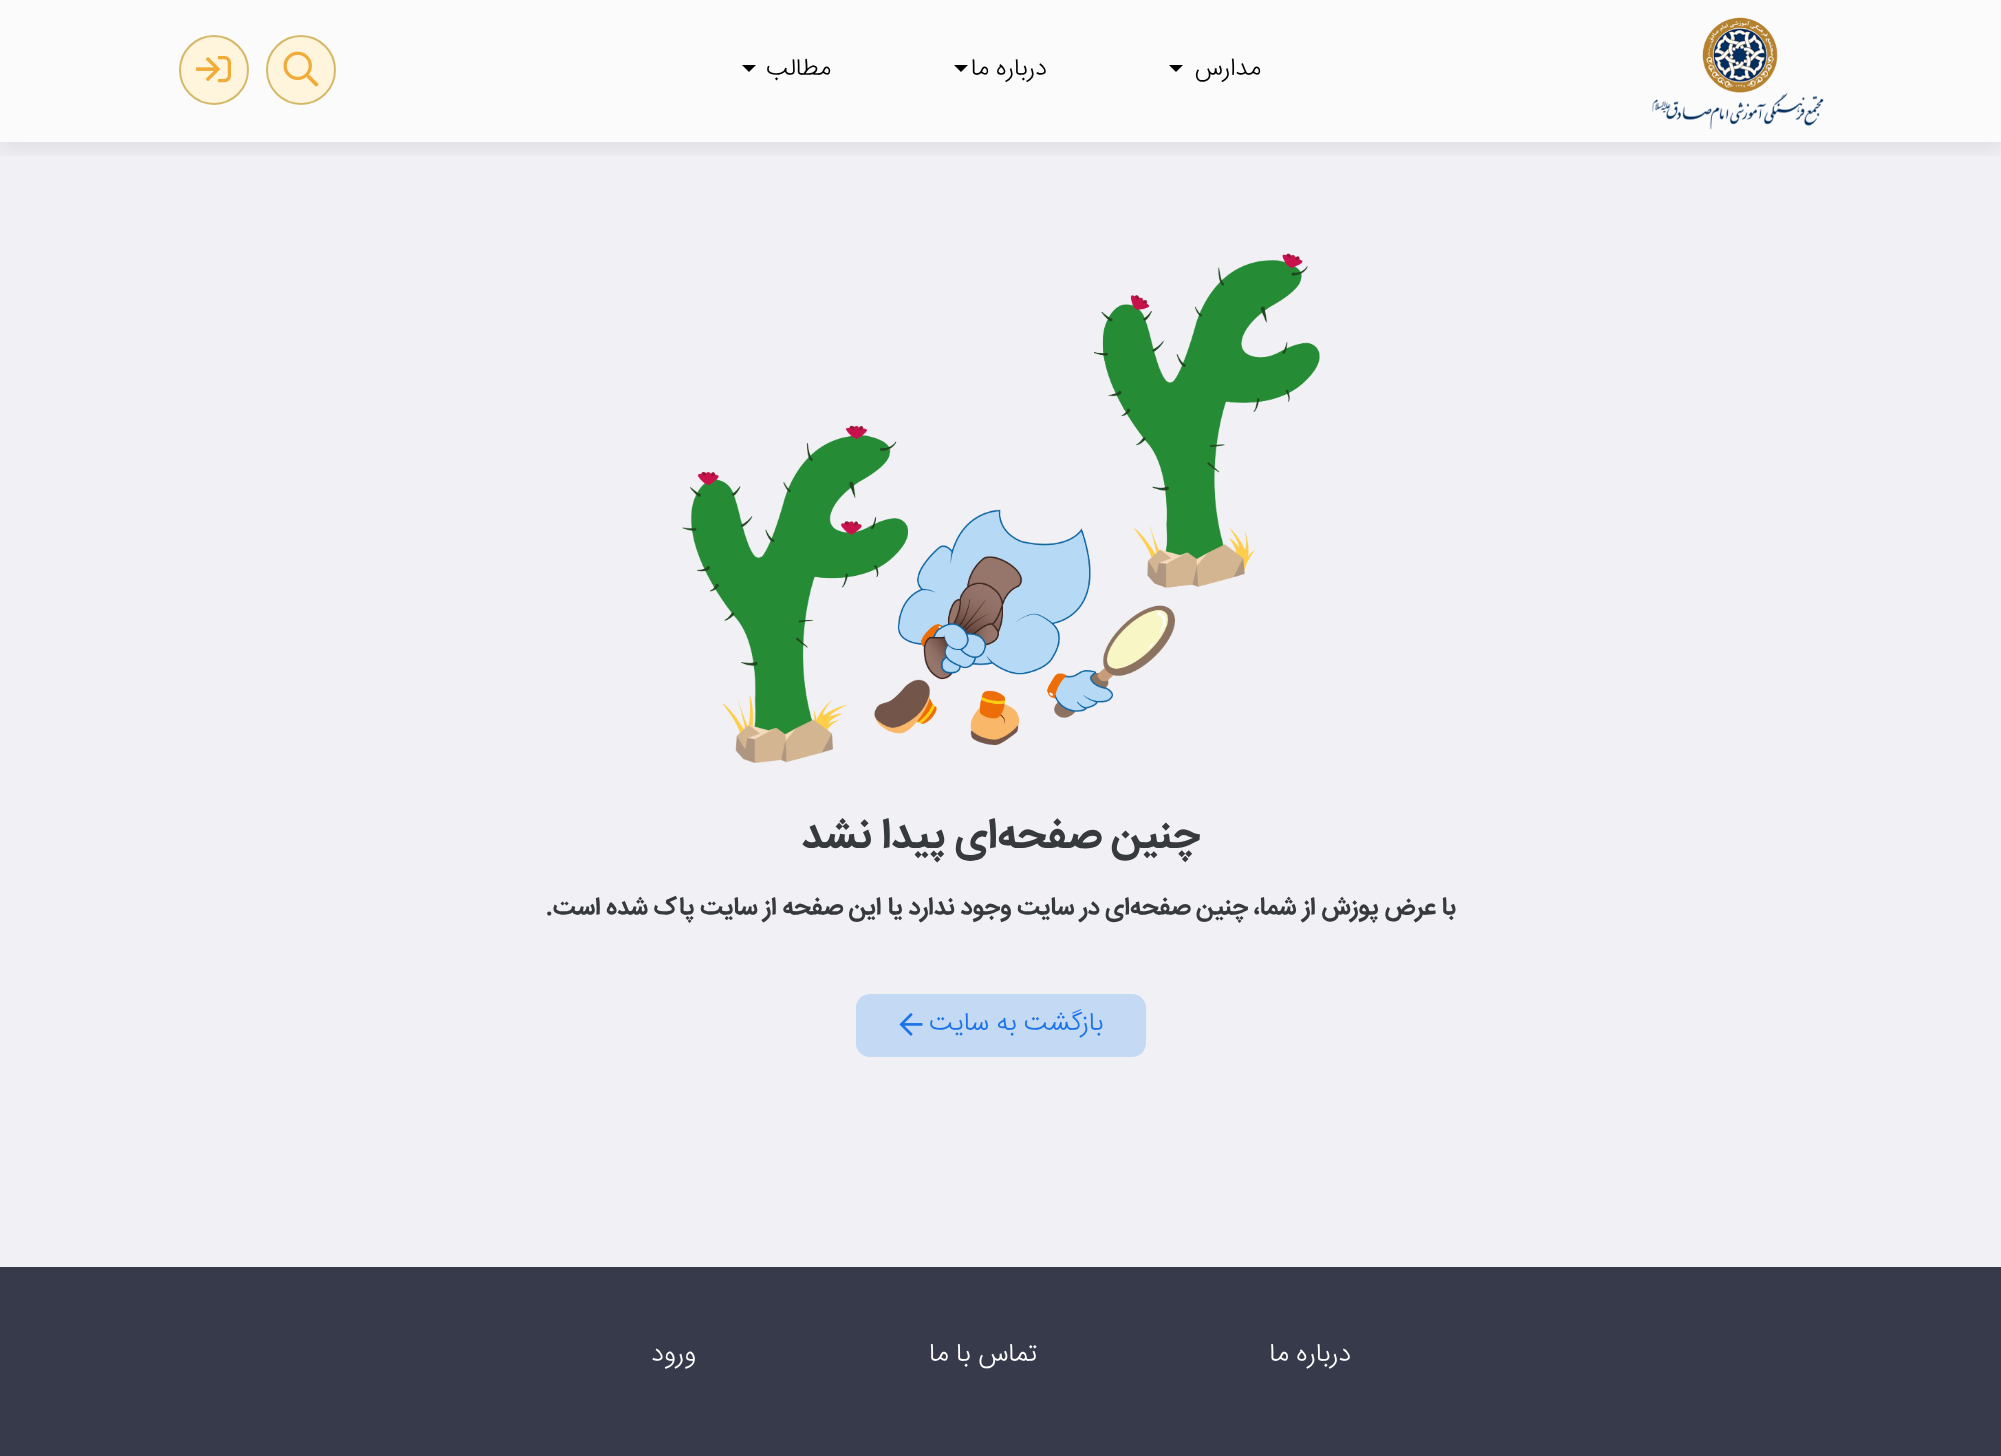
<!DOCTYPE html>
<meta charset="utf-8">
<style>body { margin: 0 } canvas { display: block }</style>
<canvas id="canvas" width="2001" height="1456"></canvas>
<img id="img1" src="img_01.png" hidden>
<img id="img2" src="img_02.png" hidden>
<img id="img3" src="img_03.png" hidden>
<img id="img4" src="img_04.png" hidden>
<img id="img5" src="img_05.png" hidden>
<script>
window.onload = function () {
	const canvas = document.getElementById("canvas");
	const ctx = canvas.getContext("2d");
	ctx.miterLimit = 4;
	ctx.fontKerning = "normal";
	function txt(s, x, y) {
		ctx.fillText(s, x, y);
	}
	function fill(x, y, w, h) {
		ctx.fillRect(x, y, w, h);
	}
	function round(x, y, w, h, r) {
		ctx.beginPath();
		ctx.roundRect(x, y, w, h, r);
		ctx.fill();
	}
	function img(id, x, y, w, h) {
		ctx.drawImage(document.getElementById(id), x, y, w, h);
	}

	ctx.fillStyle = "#F1F1F5";
	fill(0, 0, 2001, 1456);
	ctx.save();
	ctx.beginPath();
	ctx.rect(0, 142, 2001, 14);
	ctx.clip();
	ctx.fillStyle = "rgba(0, 0, 0, 0.08)";
	ctx.filter = "blur(10.5px)";
	ctx.beginPath();
	ctx.rect(0, 7, 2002, 142);
	ctx.fill();
	ctx.filter = "none";
	ctx.restore();
	ctx.fillStyle = "rgba(255, 255, 255, 0.72)";
	fill(0, 0, 2001, 142);
	img("img1", 1651, 17, 173, 113);
	ctx.fillStyle = "#000000";
	ctx.beginPath();
	ctx.moveTo(1169, 65);
	ctx.lineTo(1183, 65);
	ctx.lineTo(1176, 72);
	ctx.closePath();
	ctx.fill();
	ctx.beginPath();
	ctx.moveTo(954, 65);
	ctx.lineTo(968, 65);
	ctx.lineTo(961, 72);
	ctx.closePath();
	ctx.fill();
	ctx.beginPath();
	ctx.moveTo(742, 65);
	ctx.lineTo(756, 65);
	ctx.lineTo(749, 72);
	ctx.closePath();
	ctx.fill();
	ctx.fillStyle = "#FFF5DD";
	ctx.beginPath();
	ctx.arc(301, 70, 34, 0, Math.PI * 2);
	ctx.fill();
	ctx.strokeStyle = "#D5B969";
	ctx.lineWidth = 2;
	ctx.stroke();
	img("img2", 283, 51, 36, 36);
	ctx.beginPath();
	ctx.arc(214, 70, 34, 0, Math.PI * 2);
	ctx.fill();
	ctx.stroke();
	img("img3", 196, 56, 35, 27);
	img("img4", 682, 253, 638, 510);
	ctx.fillStyle = "#C4D9F4";
	round(856, 994, 290, 63, 14);
	img("img5", 899, 1013, 24, 23);
	ctx.fillStyle = "#373A4A";
	fill(0, 1267, 2001, 189);
	ctx.direction = "rtl";
	ctx.font = "300 24.5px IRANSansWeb";
	ctx.fillStyle = "#000000";
	txt("مدارس", 1261, 75);
	txt("درباره ما", 1047, 75);
	txt("مطالب", 831, 75);
	ctx.font = "bold 42px IRANSansWeb";
	ctx.fillStyle = "#373A3C";
	txt("چنین صفحه‌ای پیدا نشد", 1200, 847);
	ctx.font = "bold 24.5px IRANSansWeb";
	txt("با عرض پوزش از شما، چنین صفحه‌ای در سایت وجود ندارد یا این صفحه از سایت پاک شده است.", 1456, 914);
	ctx.font = "300 26.25px IRANSansWeb";
	ctx.fillStyle = "#1A73E8";
	txt("بازگشت به سایت", 1103, 1030);
	ctx.fillStyle = "#FFFFFF";
	txt("درباره ما", 1351, 1361);
	txt("تماس با ما", 1037, 1361);
	txt("ورود", 696, 1361);
};
</script>
